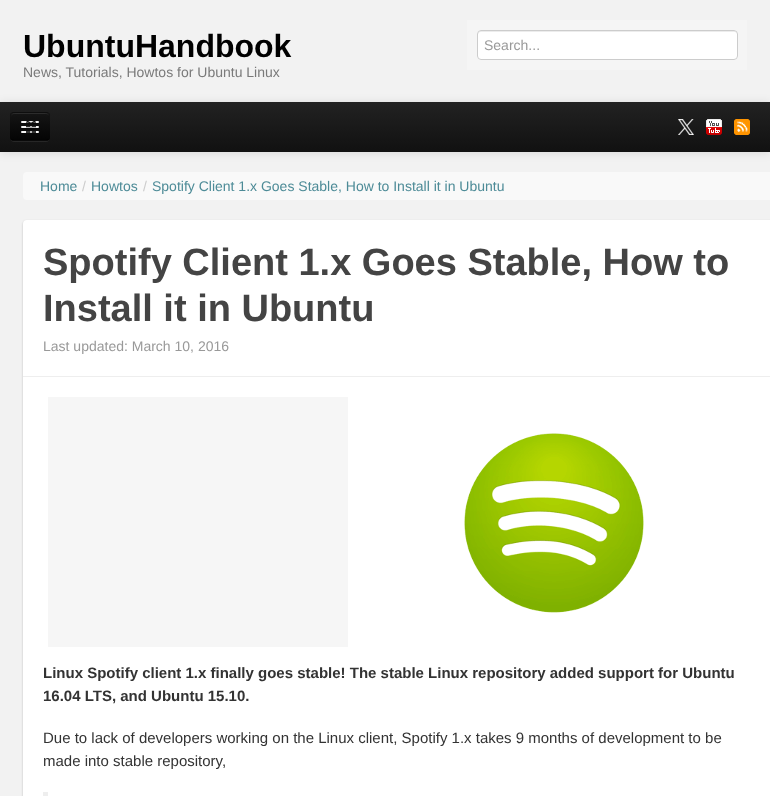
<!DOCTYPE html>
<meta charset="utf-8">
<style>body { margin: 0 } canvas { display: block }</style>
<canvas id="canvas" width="770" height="796"></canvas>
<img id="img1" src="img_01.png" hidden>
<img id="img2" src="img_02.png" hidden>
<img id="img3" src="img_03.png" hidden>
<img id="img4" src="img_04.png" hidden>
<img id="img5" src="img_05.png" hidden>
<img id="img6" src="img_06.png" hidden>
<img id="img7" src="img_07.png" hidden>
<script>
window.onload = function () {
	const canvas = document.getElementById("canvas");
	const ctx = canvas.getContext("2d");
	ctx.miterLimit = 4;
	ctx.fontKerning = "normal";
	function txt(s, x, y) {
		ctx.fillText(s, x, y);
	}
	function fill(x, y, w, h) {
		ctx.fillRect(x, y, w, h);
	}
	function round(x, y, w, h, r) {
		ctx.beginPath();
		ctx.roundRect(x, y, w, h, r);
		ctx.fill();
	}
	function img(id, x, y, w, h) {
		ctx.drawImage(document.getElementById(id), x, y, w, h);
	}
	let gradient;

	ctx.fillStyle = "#F2F2F2";
	fill(0, 0, 770, 796);
	ctx.fillStyle = "#F5F5F5";
	fill(467, 20, 280, 50);
	ctx.fillStyle = "#FFFFFF";
	round(477, 30, 261, 30, 4);
	ctx.fillStyle = "#ECECEC";
	ctx.beginPath();
	ctx.moveTo(481, 32);
	ctx.lineTo(735, 32);
	ctx.lineTo(737, 33);
	ctx.lineTo(737, 35);
	ctx.lineTo(737, 34);
	ctx.bezierCurveTo(737, 32, 736, 31, 734, 31);
	ctx.lineTo(481, 31);
	ctx.bezierCurveTo(479, 31, 478, 32, 478, 34);
	ctx.lineTo(478, 35);
	ctx.bezierCurveTo(478, 33, 479, 32, 481, 32);
	ctx.closePath();
	ctx.fill();
	ctx.beginPath();
	ctx.roundRect(477.5, 30.5, 260, 29, 3.5);
	ctx.strokeStyle = "#CCCCCC";
	ctx.stroke();
	ctx.fillStyle = "rgba(0, 0, 0, 0.1)";
	ctx.filter = "blur(5px)";
	ctx.beginPath();
	ctx.rect(0, 103, 770, 50);
	ctx.fill();
	ctx.filter = "none";
	gradient = ctx.createLinearGradient(385, 102, 385, 152);
	gradient.addColorStop(0, "#222222");
	gradient.addColorStop(1, "#111111");
	ctx.fillStyle = gradient;
	fill(0, 102, 770, 50);
	ctx.fillStyle = "#272727";
	ctx.beginPath();
	ctx.moveTo(10, 137);
	ctx.bezierCurveTo(10, 143, 15, 142, 19, 142);
	ctx.lineTo(41, 142);
	ctx.bezierCurveTo(45, 142, 50, 143, 50, 137);
	ctx.bezierCurveTo(50, 139, 48, 141, 46, 141);
	ctx.lineTo(14, 141);
	ctx.bezierCurveTo(12, 141, 10, 139, 10, 137);
	ctx.closePath();
	ctx.fill();
	ctx.fillStyle = "#0E0E0E";
	round(10, 112, 40, 29, 4);
	ctx.save();
	ctx.beginPath();
	ctx.roundRect(10, 112, 40, 29, 4);
	ctx.clip();
	gradient = ctx.createLinearGradient(30, 113, 30, 140);
	gradient.addColorStop(0, "#151515");
	gradient.addColorStop(1, "#040404");
	ctx.fillStyle = gradient;
	fill(10, 113, 40, 27);
	ctx.restore();
	ctx.fillStyle = "#2C2C2C";
	ctx.beginPath();
	ctx.moveTo(14, 114);
	ctx.lineTo(46, 114);
	ctx.bezierCurveTo(48, 114, 49, 115, 49, 117);
	ctx.bezierCurveTo(49, 112, 45, 113, 40.5, 113);
	ctx.lineTo(19.5, 113);
	ctx.bezierCurveTo(15, 113, 11, 112, 11, 117);
	ctx.bezierCurveTo(11, 115, 12, 114, 14, 114);
	ctx.closePath();
	ctx.fill();
	ctx.beginPath();
	ctx.moveTo(48.5, 139.5);
	ctx.bezierCurveTo(48, 140, 47, 140.5, 46, 140.5);
	ctx.lineTo(14, 140.5);
	ctx.bezierCurveTo(13, 140.5, 12, 140, 11.5, 139.5);
	ctx.strokeStyle = "rgba(0, 0, 0, 0.25)";
	ctx.stroke();
	ctx.fillStyle = "#0B0B0B";
	ctx.beginPath();
	ctx.moveTo(21, 122.5);
	ctx.bezierCurveTo(20, 124.5, 24.5, 124, 24.5, 124);
	ctx.lineTo(35.5, 124);
	ctx.bezierCurveTo(35.5, 124, 40, 124.5, 39, 122.5);
	ctx.bezierCurveTo(38, 123.5, 31.5, 123, 30, 123);
	ctx.bezierCurveTo(28.5, 123, 22, 123.5, 21, 122.5);
	ctx.closePath();
	ctx.fill();
	ctx.fillStyle = "#F5F5F5";
	round(21, 121, 18, 2, 1);
	img("img1", 26, 121, 10, 2);
	ctx.fillStyle = "#080808";
	ctx.beginPath();
	ctx.moveTo(21, 127.5);
	ctx.bezierCurveTo(20, 129.5, 24.5, 129, 24.5, 129);
	ctx.lineTo(35.5, 129);
	ctx.bezierCurveTo(35.5, 129, 40, 129.5, 39, 127.5);
	ctx.bezierCurveTo(38, 128.5, 31.5, 128, 30, 128);
	ctx.bezierCurveTo(28.5, 128, 22, 128.5, 21, 127.5);
	ctx.closePath();
	ctx.fill();
	ctx.fillStyle = "#F5F5F5";
	round(21, 126, 18, 2, 1);
	img("img2", 26, 126, 10, 2);
	round(21, 131, 18, 2, 1);
	img("img3", 26, 131, 10, 2);
	img("img4", 678, 119, 16, 16);
	img("img5", 706, 119, 16, 16);
	img("img6", 734, 119, 16, 16);
	ctx.fillStyle = "#F9F9F9";
	round(23, 172, 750, 28, 4);
	ctx.fillStyle = "rgba(0, 0, 0, 0.2)";
	ctx.filter = "blur(1px)";
	ctx.beginPath();
	ctx.roundRect(23, 221, 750, 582, 4);
	ctx.fill();
	ctx.filter = "none";
	ctx.fillStyle = "#FFFFFF";
	round(23, 220, 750, 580, 4);
	ctx.fillStyle = "#EEEEEE";
	fill(23, 376, 747, 1);
	ctx.fillStyle = "#F6F6F6";
	fill(48, 397, 300, 250);
	img("img7", 464, 433, 180, 180);
	ctx.fillStyle = "#EEEEEE";
	fill(43, 792, 5, 4);
	ctx.font = "bold 32px Liberation Sans";
	ctx.fillStyle = "#000000";
	txt("UbuntuHandbook", 23, 57);
	ctx.font = "14px Liberation Sans";
	ctx.fillStyle = "#7A7A7A";
	txt("News, Tutorials, Howtos for Ubuntu Linux", 23, 77);
	ctx.fillStyle = "#999999";
	txt("Search...", 484, 50);
	ctx.fillStyle = "#4D8B97";
	txt("Home", 40, 191);
	ctx.fillStyle = "#CCCCCC";
	txt("/", 82, 191);
	ctx.fillStyle = "#4D8B97";
	txt("Howtos", 91, 191);
	ctx.fillStyle = "#CCCCCC";
	txt("/", 143, 191);
	ctx.fillStyle = "#4D8B97";
	txt("Spotify Client 1.x Goes Stable, How to Install it in Ubuntu", 152, 191);
	ctx.font = "bold 38px Liberation Sans";
	ctx.fillStyle = "#444444";
	txt("Spotify Client 1.x Goes Stable, How to", 43, 275);
	txt("Install it in Ubuntu", 43, 321);
	ctx.font = "14px Liberation Sans";
	ctx.fillStyle = "#999999";
	txt("Last updated: March 10, 2016", 43, 351);
	ctx.font = "bold 15px Liberation Sans";
	ctx.fillStyle = "#333333";
	txt("Linux Spotify client 1.x finally goes stable! The stable Linux repository added support for Ubuntu", 43, 678);
	txt("16.04 LTS, and Ubuntu 15.10.", 43, 701);
	ctx.font = "15px Liberation Sans";
	txt("Due to lack of developers working on the Linux client, Spotify 1.x takes 9 months of development to be", 43, 743);
	txt("made into stable repository,", 43, 766);
};
</script>
